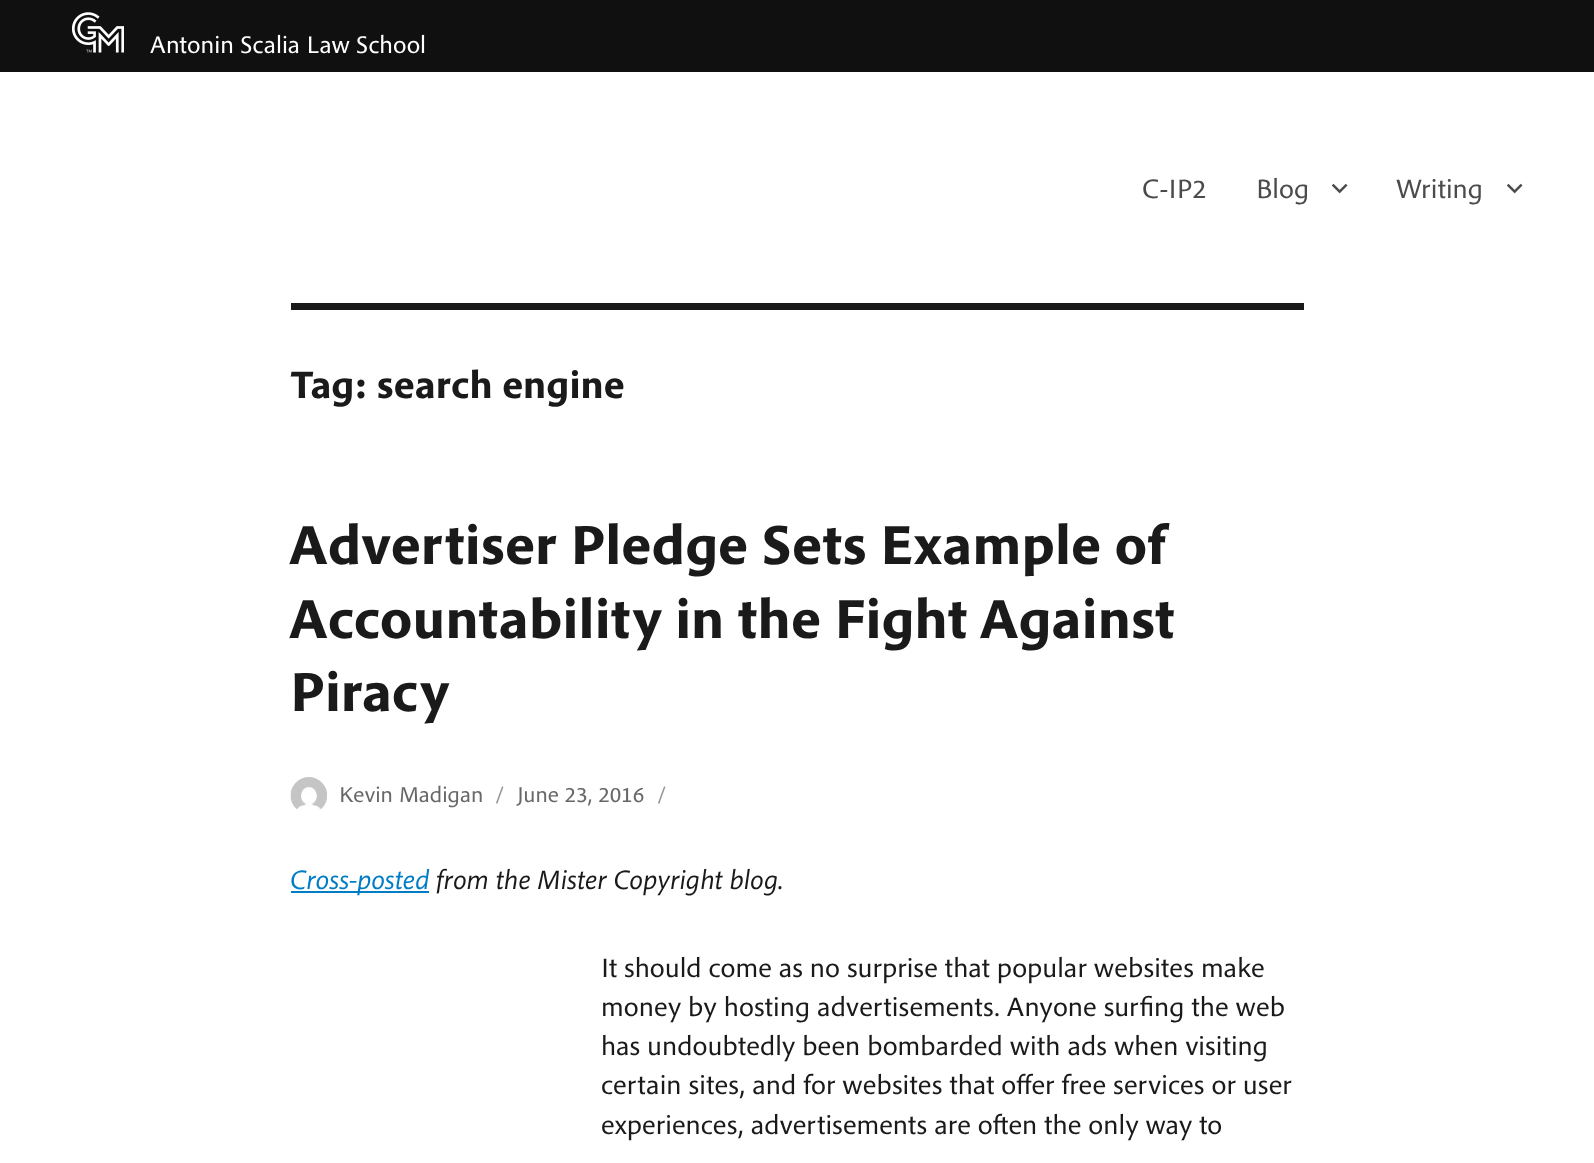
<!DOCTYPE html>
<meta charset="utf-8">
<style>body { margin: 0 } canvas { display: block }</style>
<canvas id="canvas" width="1594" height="1163"></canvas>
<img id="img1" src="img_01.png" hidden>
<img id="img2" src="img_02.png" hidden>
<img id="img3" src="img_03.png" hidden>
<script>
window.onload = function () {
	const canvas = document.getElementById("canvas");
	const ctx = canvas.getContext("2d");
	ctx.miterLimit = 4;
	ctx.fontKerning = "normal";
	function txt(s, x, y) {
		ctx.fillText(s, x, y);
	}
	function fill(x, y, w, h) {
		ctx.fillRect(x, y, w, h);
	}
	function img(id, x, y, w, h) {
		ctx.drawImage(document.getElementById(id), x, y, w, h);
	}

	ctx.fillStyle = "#101010";
	fill(0, 0, 1594, 1163);
	img("img1", 72, 12, 52, 41);
	ctx.fillStyle = "#FFFFFF";
	fill(0, 72, 1594, 1091);
	img("img2", 1331, 183, 17, 11);
	img("img2", 1506, 183, 17, 11);
	ctx.fillStyle = "#1A1A1A";
	fill(291, 303, 1013, 7);
	img("img3", 290, 777, 37, 33);
	ctx.fillStyle = "#007DC5";
	fill(291, 891, 138, 2);
	ctx.font = "25.25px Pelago";
	ctx.fillStyle = "#FFFFFF";
	txt("Antonin Scalia Law School", 150, 53);
	ctx.font = "28px Pelago";
	ctx.fillStyle = "#4B4B4B";
	txt("C-IP2", 1142, 198);
	txt("Blog", 1256, 198);
	txt("Writing", 1396, 198);
	ctx.font = "bold 40.25px Pelago";
	ctx.fillStyle = "#1A1A1A";
	txt("Tag: search engine", 290, 398);
	ctx.font = "bold 57.75px Pelago";
	txt("Advertiser Pledge Sets Example of", 290, 564);
	txt("Accountability in the Fight Against", 290, 638);
	txt("Piracy", 290, 711);
	ctx.font = "22.75px Pelago";
	ctx.fillStyle = "#686868";
	txt("Kevin Madigan", 339, 802);
	ctx.fillStyle = "#959595";
	txt("/", 495, 802);
	ctx.fillStyle = "#686868";
	txt("June 23, 2016", 517, 802);
	ctx.fillStyle = "#959595";
	txt("/", 657, 802);
	ctx.font = "italic 28px Pelago";
	ctx.fillStyle = "#007DC5";
	txt("Cross-posted", 290, 889);
	ctx.fillStyle = "#1A1A1A";
	txt("from the Mister Copyright blog.", 436, 889);
	ctx.font = "28px Pelago";
	txt("It should come as no surprise that popular websites make", 601, 977);
	txt("money by hosting advertisements. Anyone surfing the web", 601, 1016);
	txt("has undoubtedly been bombarded with ads when visiting", 601, 1055);
	txt("certain sites, and for websites that offer free services or user", 601, 1094);
	txt("experiences, advertisements are often the only way to", 601, 1134);
};
</script>
